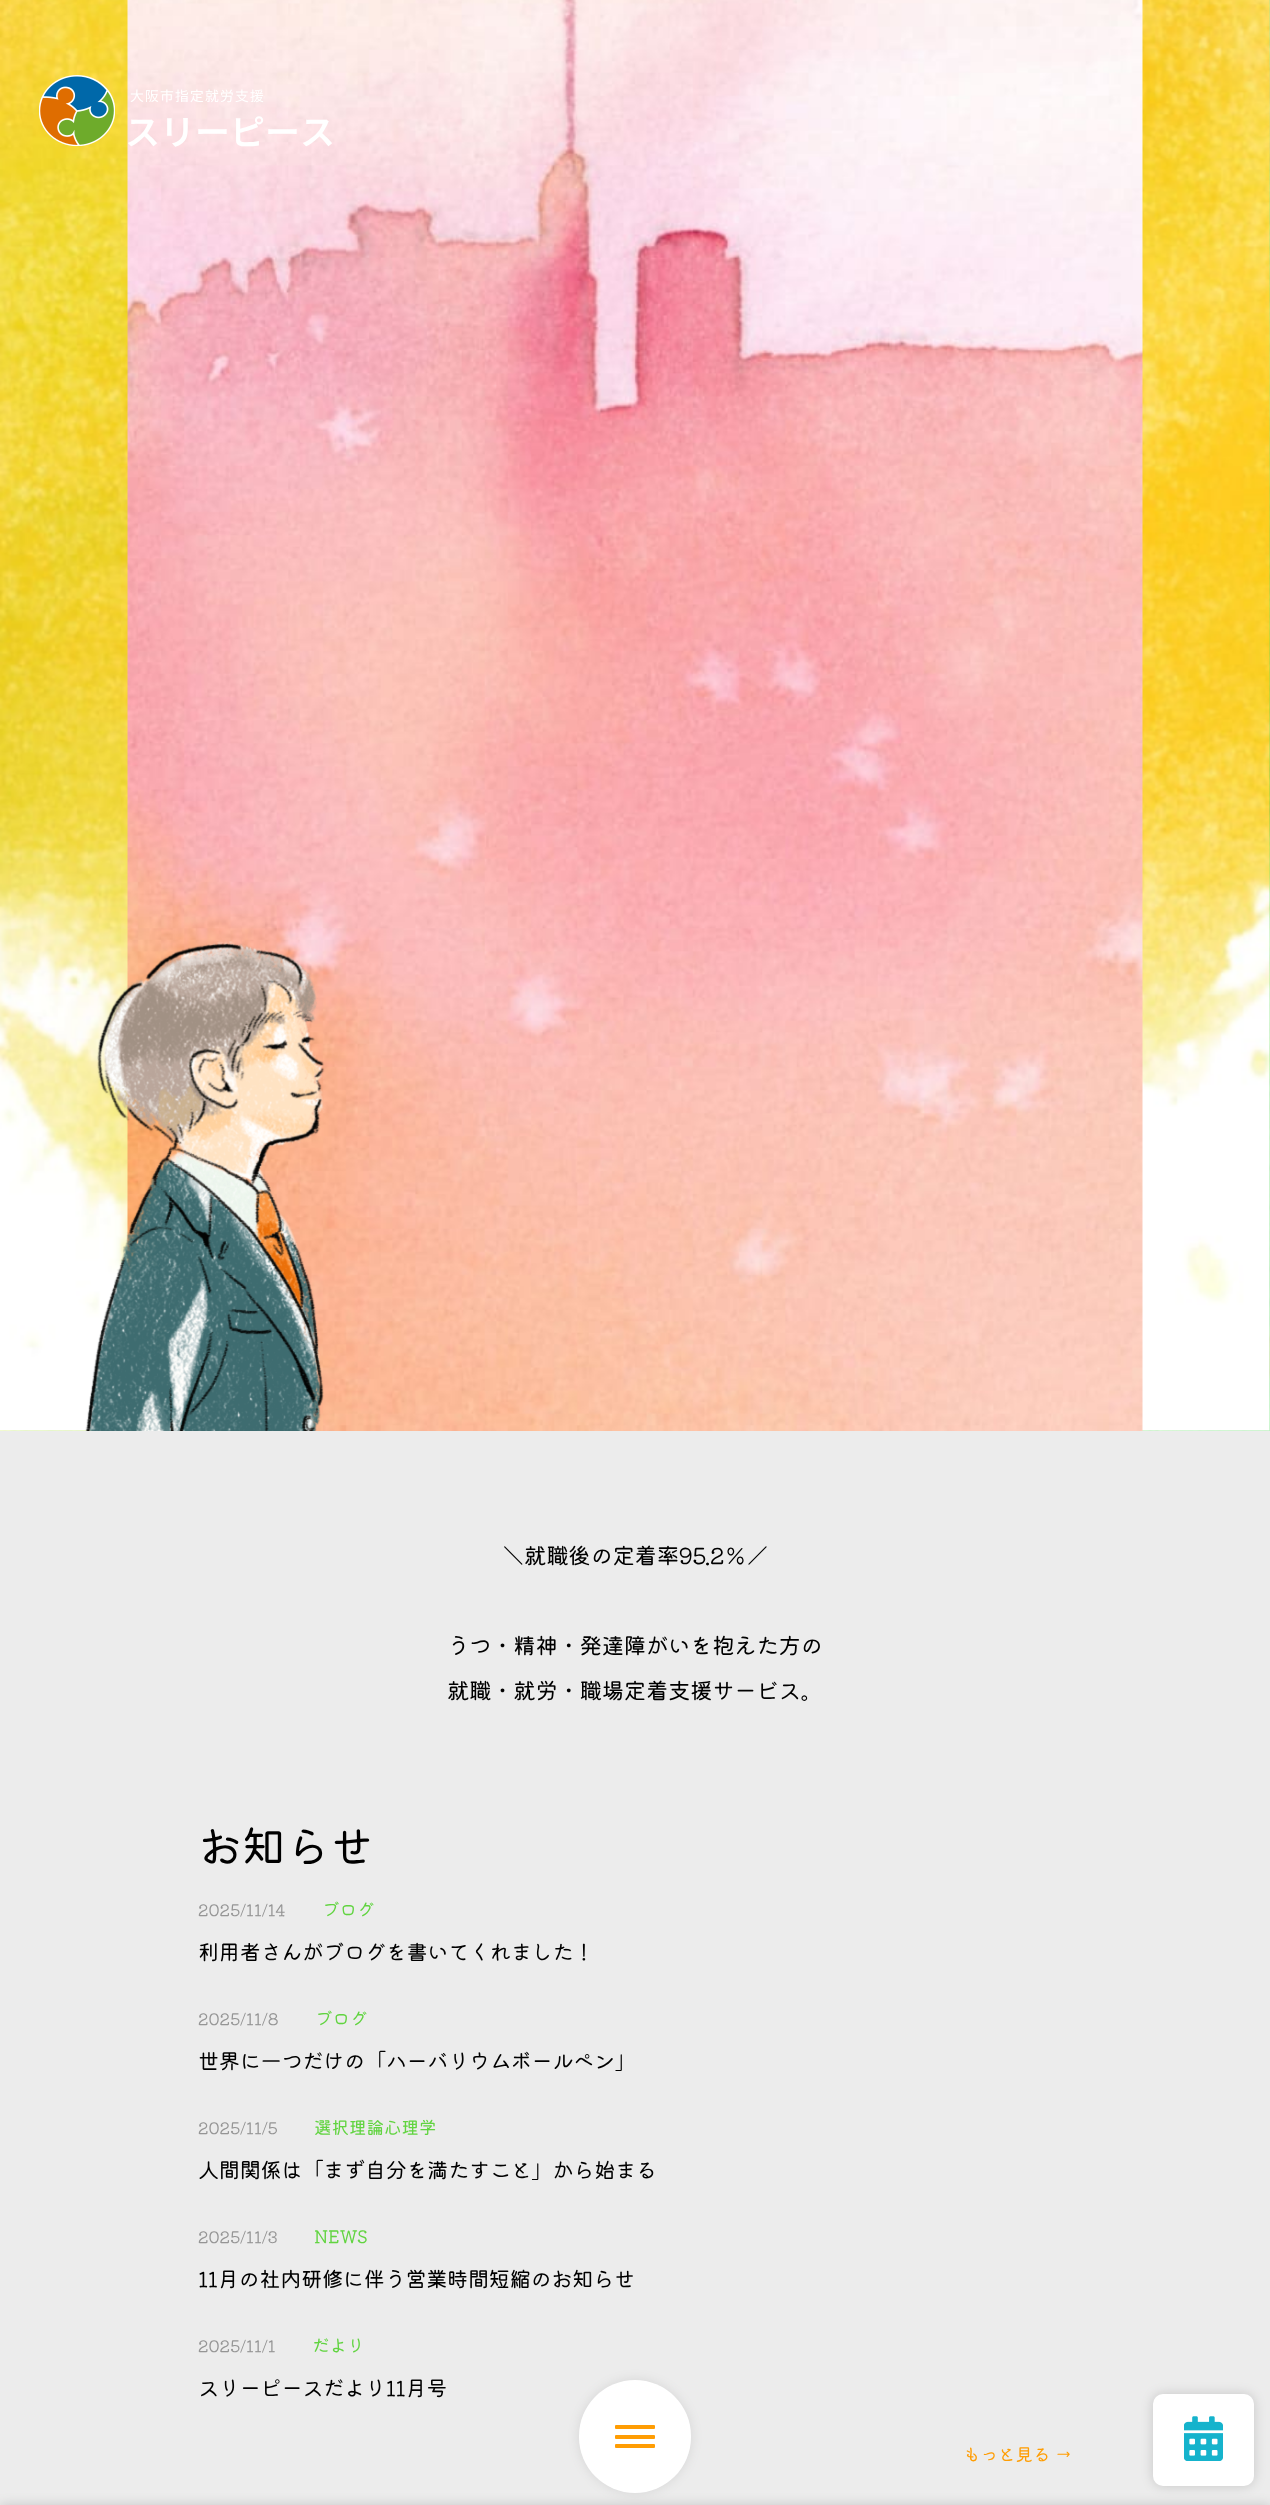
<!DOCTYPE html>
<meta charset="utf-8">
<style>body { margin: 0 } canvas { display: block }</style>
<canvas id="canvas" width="1270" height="2505"></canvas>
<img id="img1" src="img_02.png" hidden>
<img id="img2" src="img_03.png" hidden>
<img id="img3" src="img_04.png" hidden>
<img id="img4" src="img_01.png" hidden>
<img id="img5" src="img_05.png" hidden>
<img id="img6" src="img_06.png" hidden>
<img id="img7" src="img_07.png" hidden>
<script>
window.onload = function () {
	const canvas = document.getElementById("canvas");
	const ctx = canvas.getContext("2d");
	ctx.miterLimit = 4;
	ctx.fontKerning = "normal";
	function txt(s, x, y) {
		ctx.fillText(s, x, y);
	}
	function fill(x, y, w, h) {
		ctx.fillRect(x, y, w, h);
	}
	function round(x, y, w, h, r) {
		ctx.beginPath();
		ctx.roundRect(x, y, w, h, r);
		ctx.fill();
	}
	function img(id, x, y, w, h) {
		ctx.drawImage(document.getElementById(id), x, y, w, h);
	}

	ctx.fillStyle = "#FFFFFF";
	fill(0, 0, 1270, 2505);
	img("img1", 0, 0, 1270, 1431);
	img("img2", 0, 0, 1270, 1431);
	img("img3", 0, 0, 1270, 1431);
	img("img4", 39, 75, 76, 71);
	img("img5", 127, 0, 1016, 1431);
	img("img6", 85, 941, 240, 490);
	ctx.fillStyle = "#ECECEC";
	fill(0, 1431, 1270, 1074);
	ctx.fillStyle = "rgba(0, 0, 0, 0.09)";
	ctx.filter = "blur(6px)";
	ctx.beginPath();
	ctx.roundRect(579, 2380, 112, 113, 56);
	ctx.fill();
	ctx.filter = "none";
	ctx.fillStyle = "#FFFFFF";
	round(579, 2380, 112, 113, 56);
	ctx.fillStyle = "#FF9D03";
	round(615, 2425, 40, 4, 1);
	round(615, 2435, 40, 4, 1);
	round(615, 2444, 40, 4, 1);
	ctx.fillStyle = "rgba(0, 0, 0, 0.16)";
	ctx.filter = "blur(6px)";
	ctx.beginPath();
	ctx.roundRect(1153, 2394, 101, 92, 10);
	ctx.fill();
	ctx.filter = "none";
	ctx.fillStyle = "#FFFFFF";
	round(1153, 2394, 101, 92, 10);
	img("img7", 1184, 2416, 39, 45);
	ctx.fillStyle = "rgba(0, 0, 0, 0.16)";
	ctx.filter = "blur(6px)";
	ctx.beginPath();
	ctx.rect(0, 2505, 1270, 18);
	ctx.fill();
	ctx.filter = "none";
	ctx.letterSpacing = "1.25px";
	ctx.font = "13.75px Noto Sans JP";
	ctx.fillStyle = "#FFFFFF";
	txt("大阪市指定就労支援", 130, 101);
	ctx.letterSpacing = "0px";
	ctx.font = "600 35px Noto Sans JP";
	txt("スリーピース", 125, 145);
	ctx.letterSpacing = "-0.4px";
	ctx.font = "22.5px Kiwi Maru";
	ctx.fillStyle = "#000000";
	txt("＼就職後の定着率95.2％／", 502, 1564);
	txt("うつ・精神・発達障がいを抱えた方の", 447, 1654);
	txt("就職・就労・職場定着支援サービス。", 447, 1699);
	ctx.letterSpacing = "0px";
	ctx.font = "44px Kiwi Maru";
	txt("お知らせ", 198, 1863);
	ctx.font = "16.25px Kiwi Maru";
	ctx.fillStyle = "#959595";
	txt("2025/11/14", 198, 1916);
	ctx.font = "17.5px Kiwi Maru";
	ctx.fillStyle = "#61D440";
	txt("ブログ", 322, 1916);
	ctx.letterSpacing = "-0.4px";
	ctx.font = "21.25px Kiwi Maru";
	ctx.fillStyle = "#000000";
	txt("利用者さんがブログを書いてくれました！", 198, 1960);
	ctx.letterSpacing = "0px";
	ctx.font = "16.25px Kiwi Maru";
	ctx.fillStyle = "#959595";
	txt("2025/11/8", 198, 2025);
	ctx.font = "17.5px Kiwi Maru";
	ctx.fillStyle = "#61D440";
	txt("ブログ", 315, 2025);
	ctx.letterSpacing = "-0.4px";
	ctx.font = "21.25px Kiwi Maru";
	ctx.fillStyle = "#000000";
	txt("世界に一つだけの「ハーバリウムボールペン」", 198, 2069);
	ctx.letterSpacing = "0px";
	ctx.font = "16.25px Kiwi Maru";
	ctx.fillStyle = "#959595";
	txt("2025/11/5", 198, 2134);
	ctx.font = "17.5px Kiwi Maru";
	ctx.fillStyle = "#61D440";
	txt("選択理論心理学", 314, 2134);
	ctx.letterSpacing = "-0.4px";
	ctx.font = "21.25px Kiwi Maru";
	ctx.fillStyle = "#000000";
	txt("人間関係は「まず自分を満たすこと」から始まる", 198, 2178);
	ctx.letterSpacing = "0px";
	ctx.font = "16.25px Kiwi Maru";
	ctx.fillStyle = "#959595";
	txt("2025/11/3", 198, 2243);
	ctx.font = "17.5px Kiwi Maru";
	ctx.fillStyle = "#61D440";
	txt("NEWS", 314, 2243);
	ctx.letterSpacing = "-0.4px";
	ctx.font = "21.25px Kiwi Maru";
	ctx.fillStyle = "#000000";
	txt("11月の社内研修に伴う営業時間短縮のお知らせ", 198, 2287);
	ctx.letterSpacing = "0px";
	ctx.font = "16.25px Kiwi Maru";
	ctx.fillStyle = "#959595";
	txt("2025/11/1", 198, 2352);
	ctx.font = "17.5px Kiwi Maru";
	ctx.fillStyle = "#61D440";
	txt("だより", 312, 2352);
	ctx.letterSpacing = "-0.4px";
	ctx.font = "21.25px Kiwi Maru";
	ctx.fillStyle = "#000000";
	txt("スリーピースだより11月号", 198, 2396);
	ctx.letterSpacing = "0px";
	ctx.font = "17.5px Kiwi Maru";
	ctx.fillStyle = "#FF9D03";
	txt("もっと見る →", 963, 2461);
};
</script>
